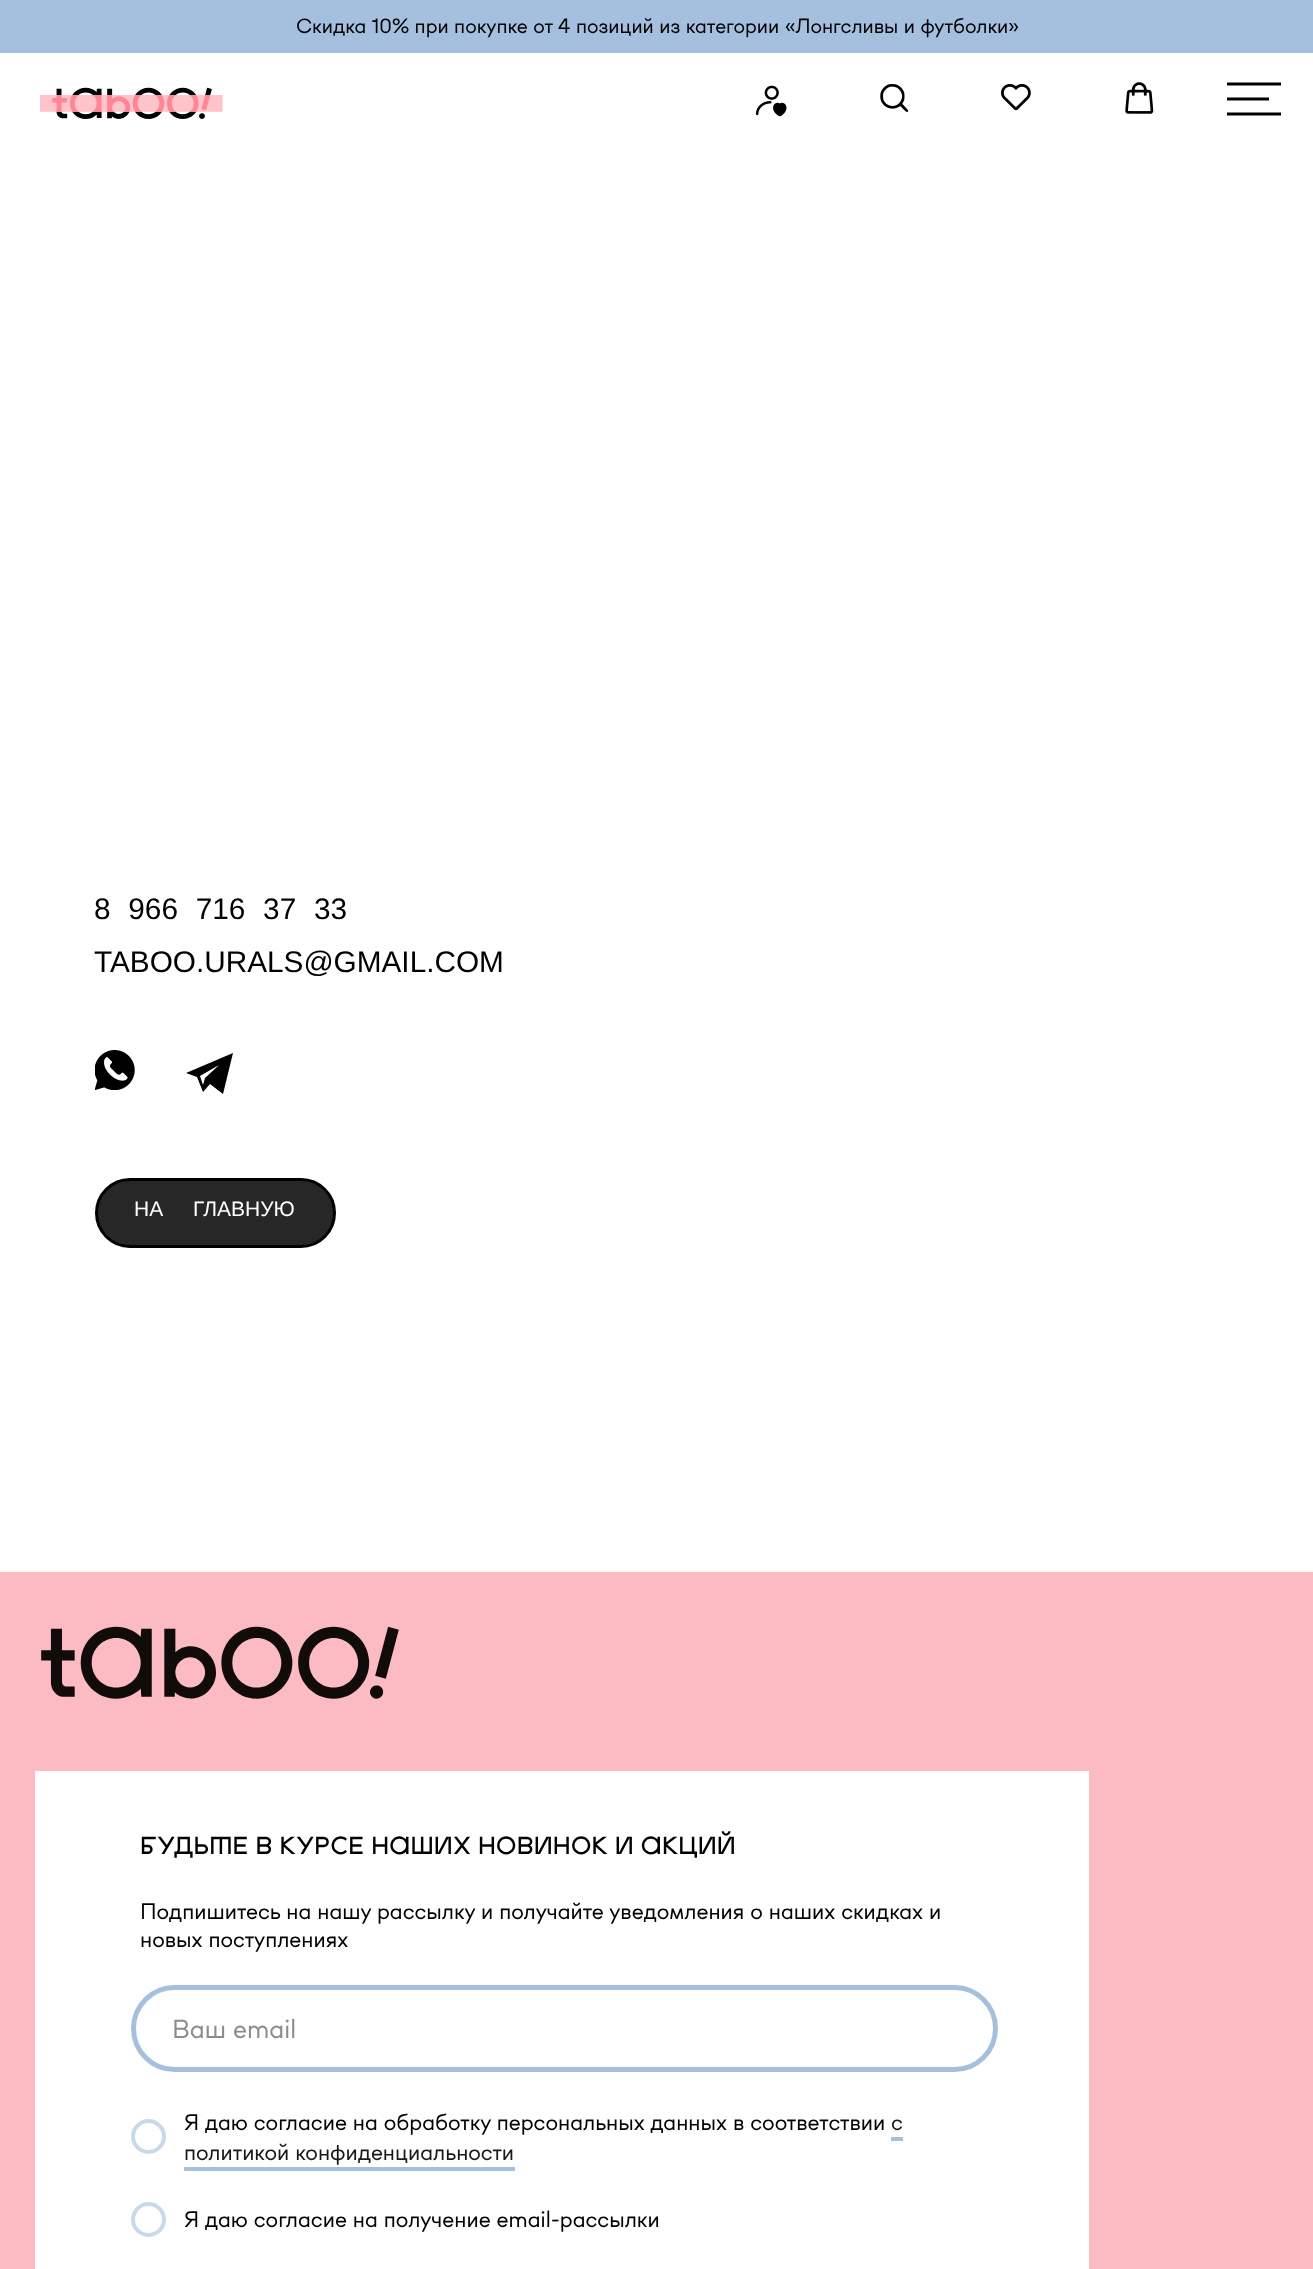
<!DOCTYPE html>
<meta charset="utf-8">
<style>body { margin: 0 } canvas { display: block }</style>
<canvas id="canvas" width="1313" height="2269"></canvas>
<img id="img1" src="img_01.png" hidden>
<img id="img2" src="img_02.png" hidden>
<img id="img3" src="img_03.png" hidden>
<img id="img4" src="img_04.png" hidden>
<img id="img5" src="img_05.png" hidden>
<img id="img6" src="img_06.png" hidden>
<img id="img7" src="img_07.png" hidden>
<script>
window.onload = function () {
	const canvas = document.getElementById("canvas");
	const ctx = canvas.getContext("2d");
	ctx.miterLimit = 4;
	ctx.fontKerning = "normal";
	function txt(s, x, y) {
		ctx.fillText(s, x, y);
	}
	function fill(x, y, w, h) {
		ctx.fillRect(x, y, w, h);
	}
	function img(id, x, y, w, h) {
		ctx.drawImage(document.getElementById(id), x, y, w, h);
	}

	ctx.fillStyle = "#FFFFFF";
	fill(0, 0, 1313, 2269);
	ctx.fillStyle = "#A5C0DF";
	fill(0, 0, 1313, 53);
	img("img1", 40, 87, 183, 32);
	img("img2", 755, 85, 32, 32);
	img("img3", 880, 84, 29, 28);
	img("img4", 1001, 84, 30, 27);
	img("img5", 1125, 82, 29, 32);
	ctx.beginPath();
	ctx.moveTo(1227, 84);
	ctx.lineTo(1281, 84);
	ctx.moveTo(1227, 99);
	ctx.lineTo(1269, 99);
	ctx.moveTo(1227, 114);
	ctx.lineTo(1281, 114);
	ctx.strokeStyle = "#000000";
	ctx.lineWidth = 3;
	ctx.stroke();
	img("img6", 95, 1050, 40, 40);
	ctx.fillStyle = "#000000";
	ctx.beginPath();
	ctx.moveTo(197, 1077);
	ctx.lineTo(203, 1092);
	ctx.lineTo(210, 1084);
	ctx.lineTo(223, 1094);
	ctx.lineTo(233, 1053);
	ctx.lineTo(186, 1073);
	ctx.closePath();
	ctx.moveTo(219, 1065);
	ctx.lineTo(205, 1078);
	ctx.lineTo(203, 1085);
	ctx.lineTo(200, 1076);
	ctx.closePath();
	ctx.fill();
	ctx.fillStyle = "#272727";
	ctx.beginPath();
	ctx.roundRect(96.5, 1179.5, 238, 67, 33.5);
	ctx.fill();
	ctx.stroke();
	ctx.fillStyle = "#FCBAC3";
	fill(0, 1572, 1313, 697);
	img("img7", 41, 1626, 358, 73);
	ctx.fillStyle = "#FFFFFF";
	fill(35, 1771, 1054, 498);
	ctx.beginPath();
	ctx.roundRect(133.5, 1987.5, 862, 82, 41);
	ctx.strokeStyle = "#A5C0DF";
	ctx.lineWidth = 5;
	ctx.stroke();
	ctx.beginPath();
	ctx.arc(148.5, 2136.5, 15.5, 0, Math.PI * 2);
	ctx.strokeStyle = "#C9D9EC";
	ctx.lineWidth = 4;
	ctx.stroke();
	ctx.fillStyle = "#A5C0DF";
	fill(891, 2137, 12, 4);
	fill(184, 2167, 331, 4);
	ctx.beginPath();
	ctx.arc(148.5, 2219.5, 15.5, 0, Math.PI * 2);
	ctx.stroke();
	ctx.font = "19.25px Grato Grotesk";
	ctx.fillStyle = "#000000";
	txt("Скидка 10% при покупке от 4 позиций из категории «Лонгсливы и футболки»", 296, 33);
	ctx.wordSpacing = "9.5px";
	ctx.font = "29.75px Liberation Sans";
	txt("8 966 716 37 33", 94, 919);
	ctx.wordSpacing = "0px";
	txt("TABOO.URALS@GMAIL.COM", 94, 972);
	ctx.wordSpacing = "24px";
	ctx.font = "21px Liberation Sans";
	ctx.fillStyle = "#FFFFFF";
	txt("НА ГЛАВНУЮ", 134, 1216);
	ctx.wordSpacing = "0px";
	ctx.font = "24.5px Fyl";
	ctx.fillStyle = "#000000";
	txt("БУДЬТЕ В КУРСЕ НАШИХ НОВИНОК И АКЦИЙ", 140, 1854);
	ctx.font = "21px Grato Grotesk";
	txt("Подпишитесь на нашу рассылку и получайте уведомления о наших скидках и", 140, 1919);
	txt("новых поступлениях", 140, 1947);
	ctx.font = "24.5px Grato Grotesk";
	ctx.fillStyle = "#8C8C8C";
	txt("Ваш email", 172, 2038);
	ctx.font = "21px Grato Grotesk";
	ctx.fillStyle = "#000000";
	txt("Я даю согласие на обработку персональных данных в соответствии", 184, 2130);
	ctx.fillStyle = "#181818";
	txt("с", 891, 2130);
	txt("политикой конфиденциальности", 184, 2160);
	ctx.fillStyle = "#000000";
	txt("Я даю согласие на получение email-рассылки", 184, 2227);
};
</script>
